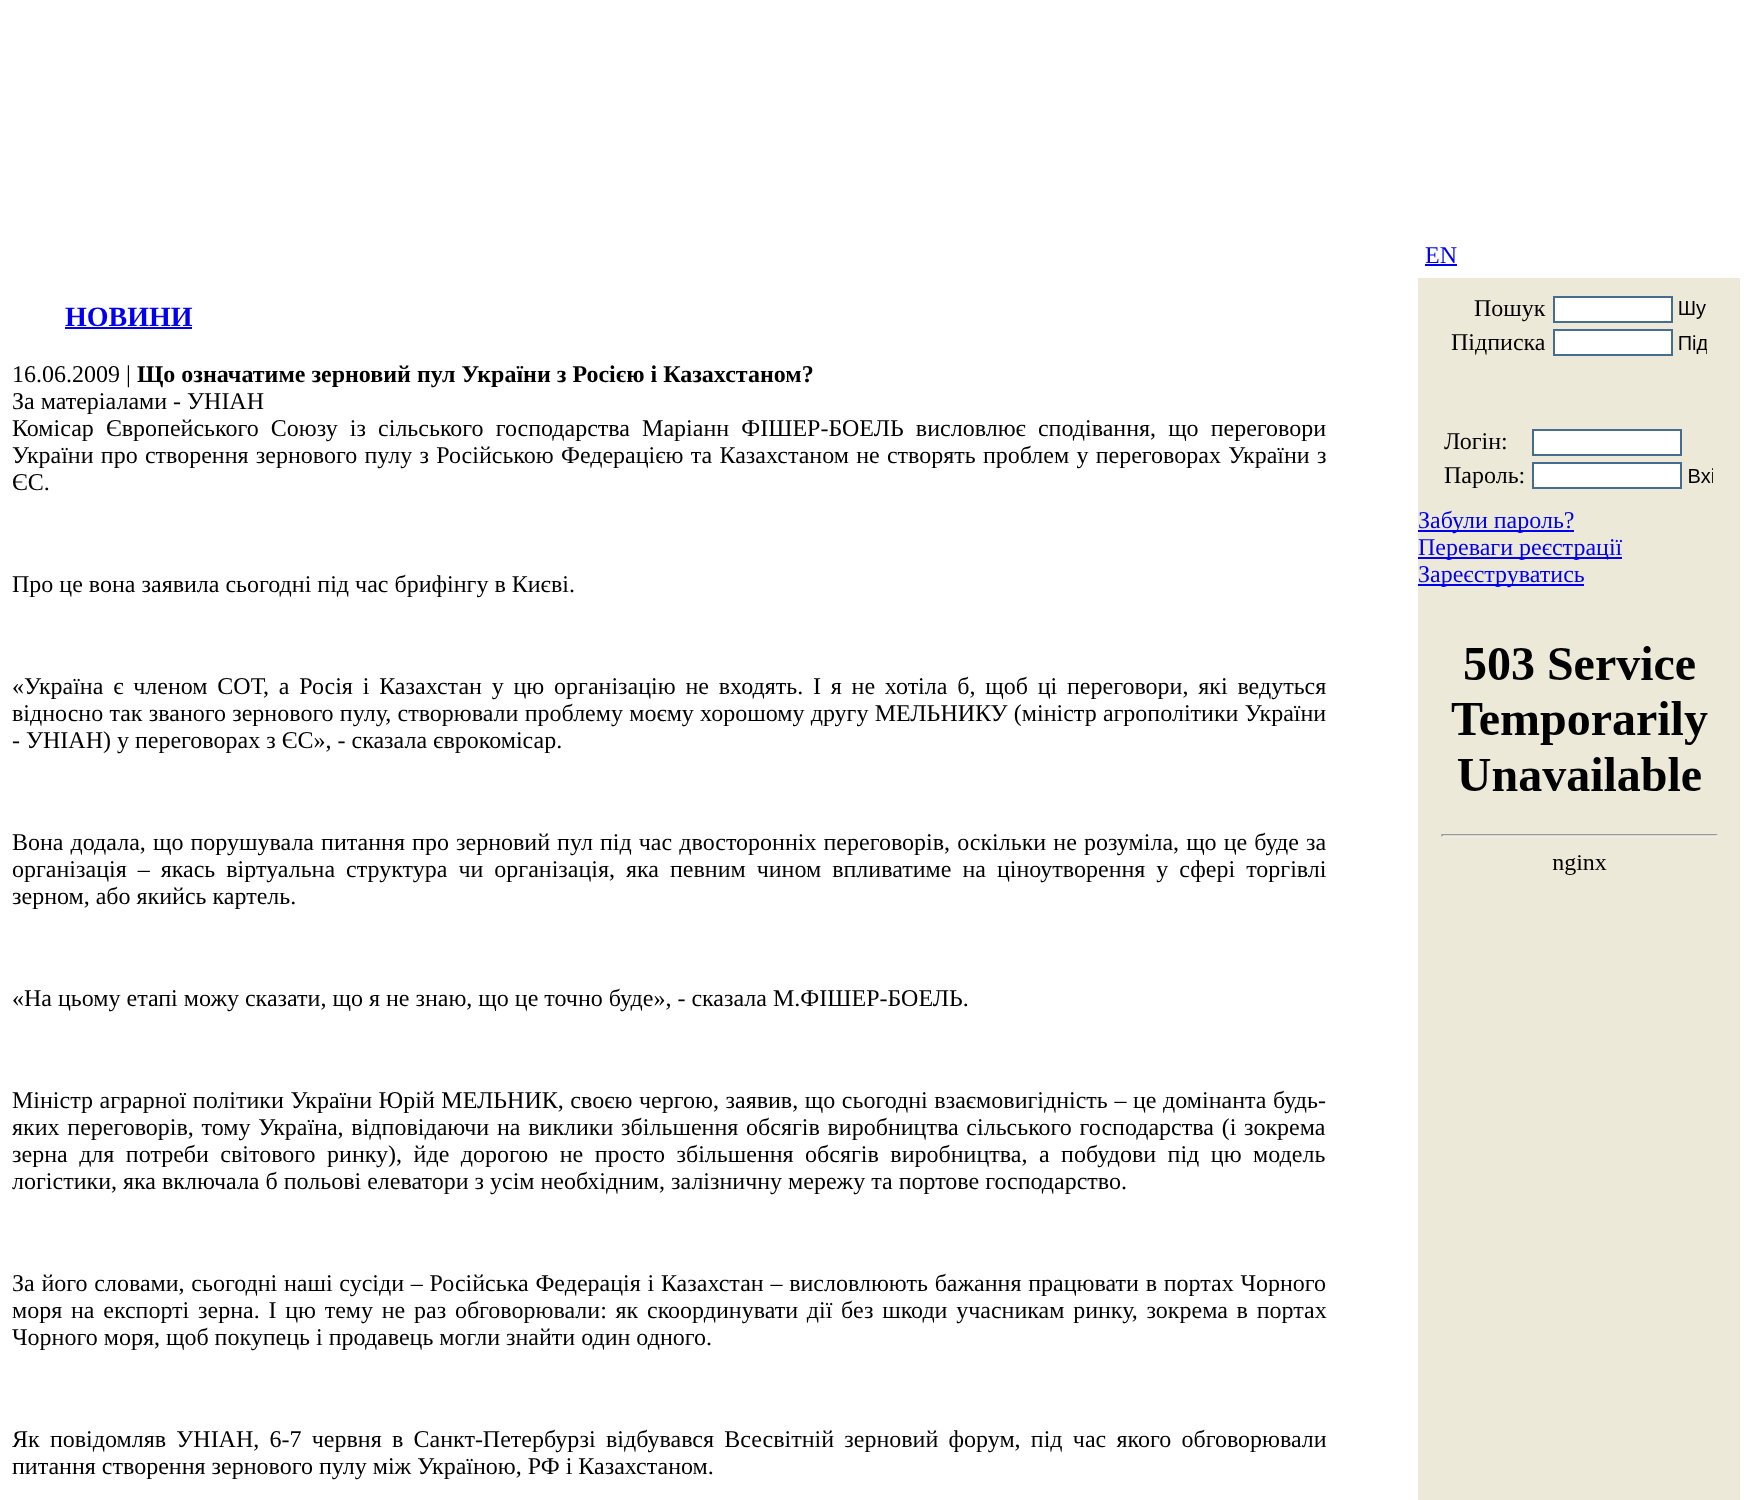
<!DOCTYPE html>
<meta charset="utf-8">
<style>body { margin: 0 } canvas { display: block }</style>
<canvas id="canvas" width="1751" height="1500"></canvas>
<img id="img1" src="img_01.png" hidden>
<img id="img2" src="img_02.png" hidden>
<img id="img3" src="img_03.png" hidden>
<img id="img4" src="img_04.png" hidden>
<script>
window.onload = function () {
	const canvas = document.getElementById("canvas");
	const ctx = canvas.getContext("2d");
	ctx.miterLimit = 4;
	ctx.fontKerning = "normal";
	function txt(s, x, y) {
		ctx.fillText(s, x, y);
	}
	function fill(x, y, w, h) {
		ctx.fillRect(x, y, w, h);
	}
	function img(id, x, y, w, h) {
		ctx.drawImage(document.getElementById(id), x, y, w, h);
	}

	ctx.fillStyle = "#FFFFFF";
	fill(0, 0, 1751, 1500);
	ctx.fillStyle = "#0000EE";
	fill(65, 327, 127, 2);
	ctx.fillStyle = "#ECE9D8";
	fill(1418, 278, 322, 1222);
	ctx.fillStyle = "#0000EE";
	fill(1425, 264, 32, 2);
	ctx.fillStyle = "#FFFFFF";
	ctx.beginPath();
	ctx.rect(1554, 297, 118, 25);
	ctx.fill();
	ctx.strokeStyle = "#466D90";
	ctx.lineWidth = 2;
	ctx.stroke();
	img("img1", 1679, 301, 27, 18);
	ctx.beginPath();
	ctx.rect(1554, 330, 118, 25);
	ctx.fill();
	ctx.stroke();
	img("img2", 1679, 335, 28, 19);
	ctx.beginPath();
	ctx.rect(1533, 430, 148, 25);
	ctx.fill();
	ctx.stroke();
	ctx.beginPath();
	ctx.rect(1533, 463, 148, 25);
	ctx.fill();
	ctx.stroke();
	img("img3", 1689, 468, 24, 15);
	ctx.fillStyle = "#0000EE";
	fill(1418, 530, 156, 2);
	fill(1418, 557, 204, 2);
	fill(1418, 584, 166, 2);
	img("img4", 1441, 646, 277, 229);
	ctx.font = "bold 28px Liberation Serif";
	txt("НОВИНИ", 65, 326);
	ctx.font = "24px Liberation Serif";
	ctx.fillStyle = "#000000";
	txt("16.06.2009 |", 12, 382);
	ctx.font = "bold 24px Liberation Serif";
	txt("Що означатиме зерновий пул України з Росією і Казахстаном?", 137, 382);
	ctx.font = "24px Liberation Serif";
	txt("За матеріалами - УНІАН", 12, 409);
	ctx.wordSpacing = "6.1px";
	txt("Комісар Європейського Союзу із сільського господарства Маріанн ФІШЕР-БОЕЛЬ висловлює сподівання, що переговори", 12, 436);
	ctx.wordSpacing = "1.25px";
	txt("України про створення зернового пулу з Російською Федерацією та Казахстаном не створять проблем у переговорах України з", 12, 463);
	ctx.wordSpacing = "0px";
	txt("ЄС.", 12, 490);
	txt("Про це вона заявила сьогодні під час брифінгу в Києві.", 12, 592);
	ctx.wordSpacing = "3.8px";
	txt("«Україна є членом СОТ, а Росія і Казахстан у цю організацію не входять. І я не хотіла б, щоб ці переговори, які ведуться", 12, 694);
	ctx.wordSpacing = "0.25px";
	txt("відносно так званого зернового пулу, створювали проблему моєму хорошому другу МЕЛЬНИКУ (міністр агрополітики України", 12, 721);
	ctx.wordSpacing = "0px";
	txt("- УНІАН) у переговорах з ЄС», - сказала єврокомісар.", 12, 748);
	ctx.wordSpacing = "1.1px";
	txt("Вона додала, що порушувала питання про зерновий пул під час двосторонніх переговорів, оскільки не розуміла, що це буде за", 12, 850);
	ctx.wordSpacing = "5px";
	txt("організація – якась віртуальна структура чи організація, яка певним чином впливатиме на ціноутворення у сфері торгівлі", 12, 877);
	ctx.wordSpacing = "0px";
	txt("зерном, або якийсь картель.", 12, 904);
	txt("«На цьому етапі можу сказати, що я не знаю, що це точно буде», - сказала М.ФІШЕР-БОЕЛЬ.", 12, 1006);
	ctx.wordSpacing = "0.6px";
	txt("Міністр аграрної політики України Юрій МЕЛЬНИК, своєю чергою, заявив, що сьогодні взаємовигідність – це домінанта будь-", 12, 1108);
	ctx.wordSpacing = "1.75px";
	txt("яких переговорів, тому Україна, відповідаючи на виклики збільшення обсягів виробництва сільського господарства (і зокрема", 12, 1135);
	ctx.wordSpacing = "5.5px";
	txt("зерна для потреби світового ринку), йде дорогою не просто збільшення обсягів виробництва, а побудови під цю модель", 12, 1162);
	ctx.wordSpacing = "0px";
	txt("логістики, яка включала б польові елеватори з усім необхідним, залізничну мережу та портове господарство.", 12, 1189);
	ctx.wordSpacing = "0.75px";
	txt("За його словами, сьогодні наші сусіди – Російська Федерація і Казахстан – висловлюють бажання працювати в портах Чорного", 12, 1291);
	ctx.wordSpacing = "2.75px";
	txt("моря на експорті зерна. І цю тему не раз обговорювали: як скоординувати дії без шкоди учасникам ринку, зокрема в портах", 12, 1318);
	ctx.wordSpacing = "0px";
	txt("Чорного моря, щоб покупець і продавець могли знайти один одного.", 12, 1345);
	ctx.wordSpacing = "4.25px";
	txt("Як повідомляв УНІАН, 6-7 червня в Санкт-Петербурзі відбувався Всесвітній зерновий форум, під час якого обговорювали", 12, 1447);
	ctx.wordSpacing = "0px";
	txt("питання створення зернового пулу між Україною, РФ і Казахстаном.", 12, 1474);
	ctx.fillStyle = "#0000EE";
	txt("EN", 1425, 263);
	ctx.fillStyle = "#000000";
	txt("Пошук", 1474, 316);
	txt("Підписка", 1451, 350);
	txt("Логін:", 1444, 449);
	txt("Пароль:", 1444, 483);
	ctx.fillStyle = "#0000EE";
	txt("Забули пароль?", 1418, 528);
	txt("Переваги реєстрації", 1418, 555);
	txt("Зареєструватись", 1418, 582);
};
</script>
